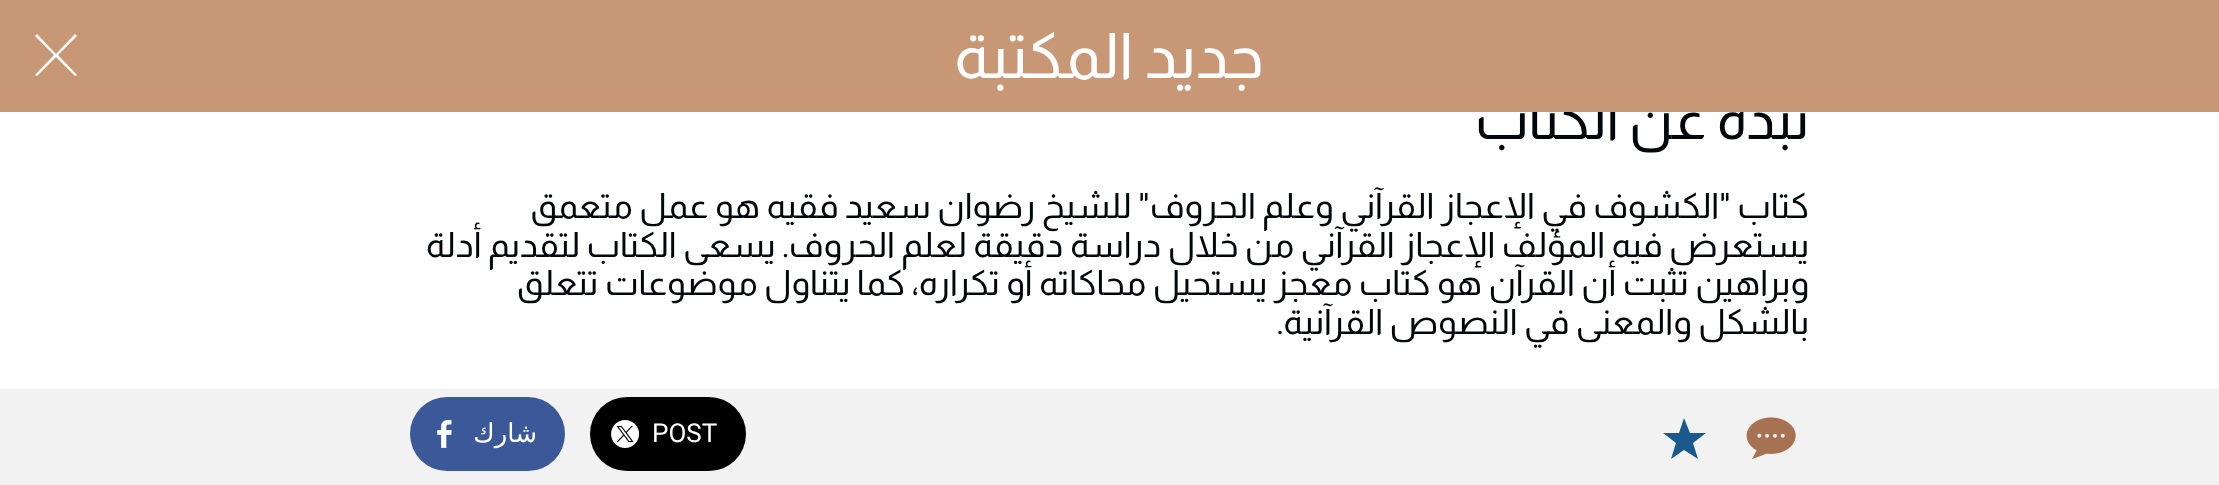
<!DOCTYPE html>
<meta charset="utf-8">
<style>body { margin: 0 } canvas { display: block }</style>
<canvas id="canvas" width="2219" height="485"></canvas>
<img id="img1" src="img_01.png" hidden>
<img id="img2" src="img_02.png" hidden>
<img id="img3" src="img_03.png" hidden>
<script>
window.onload = function () {
	const canvas = document.getElementById("canvas");
	const ctx = canvas.getContext("2d");
	ctx.miterLimit = 4;
	ctx.fontKerning = "normal";
	function txt(s, x, y) {
		ctx.fillText(s, x, y);
	}
	function fill(x, y, w, h) {
		ctx.fillRect(x, y, w, h);
	}
	function round(x, y, w, h, r) {
		ctx.beginPath();
		ctx.roundRect(x, y, w, h, r);
		ctx.fill();
	}
	function img(id, x, y, w, h) {
		ctx.drawImage(document.getElementById(id), x, y, w, h);
	}

	ctx.fillStyle = "#FFFFFF";
	fill(0, 0, 2219, 485);
	ctx.fillStyle = "#F2F2F2";
	fill(0, 389, 2219, 96);
	img("img1", 1746, 417, 50, 43);
	ctx.fillStyle = "#1A598C";
	ctx.beginPath();
	ctx.moveTo(1706, 433);
	ctx.lineTo(1690, 433);
	ctx.lineTo(1684, 418);
	ctx.lineTo(1679, 433);
	ctx.lineTo(1663, 433);
	ctx.lineTo(1676, 443);
	ctx.lineTo(1671, 459);
	ctx.lineTo(1684, 450);
	ctx.lineTo(1698, 459);
	ctx.lineTo(1693, 443);
	ctx.closePath();
	ctx.fill();
	ctx.fillStyle = "#000000";
	round(590, 397, 156, 74, 37);
	img("img2", 611, 420, 29, 28);
	ctx.fillStyle = "#3B5999";
	round(410, 397, 155, 74, 37);
	img("img3", 437, 420, 15, 28);
	ctx.direction = "rtl";
	ctx.font = "56px Almarai";
	ctx.fillStyle = "#02070B";
	txt("نبذة عن الكتاب", 1809, 139);
	ctx.fillStyle = "#C89876";
	fill(0, 0, 2219, 112);
	ctx.fillStyle = "#FFFFFF";
	ctx.beginPath();
	ctx.moveTo(77, 36);
	ctx.lineTo(75, 34);
	ctx.lineTo(56, 54);
	ctx.lineTo(37, 34);
	ctx.lineTo(35, 36);
	ctx.lineTo(54, 55);
	ctx.lineTo(35, 75);
	ctx.lineTo(37, 76);
	ctx.lineTo(56, 57);
	ctx.lineTo(75, 76);
	ctx.lineTo(77, 75);
	ctx.lineTo(58, 55);
	ctx.closePath();
	ctx.fill();
	ctx.font = "63px Almarai";
	txt("جديد المكتبة", 1264, 78);
	ctx.font = "35px Almarai";
	ctx.fillStyle = "#02070B";
	txt("كتاب \"الكشوف في الإعجاز القرآني وعلم الحروف\" للشيخ رضوان سعيد فقيه هو عمل متعمق", 1809, 218);
	txt("يستعرض فيه المؤلف الإعجاز القرآني من خلال دراسة دقيقة لعلم الحروف. يسعى الكتاب لتقديم أدلة", 1809, 257);
	txt("وبراهين تثبت أن القرآن هو كتاب معجز يستحيل محاكاته أو تكراره، كما يتناول موضوعات تتعلق", 1809, 295);
	txt("بالشكل والمعنى في النصوص القرآنية.", 1809, 334);
	ctx.direction = "ltr";
	ctx.font = "26px Roboto";
	ctx.fillStyle = "#FFFFFF";
	txt("POST", 652, 442);
	ctx.direction = "rtl";
	ctx.font = "26px DejaVu Sans";
	txt("شارك", 537, 442);
};
</script>
